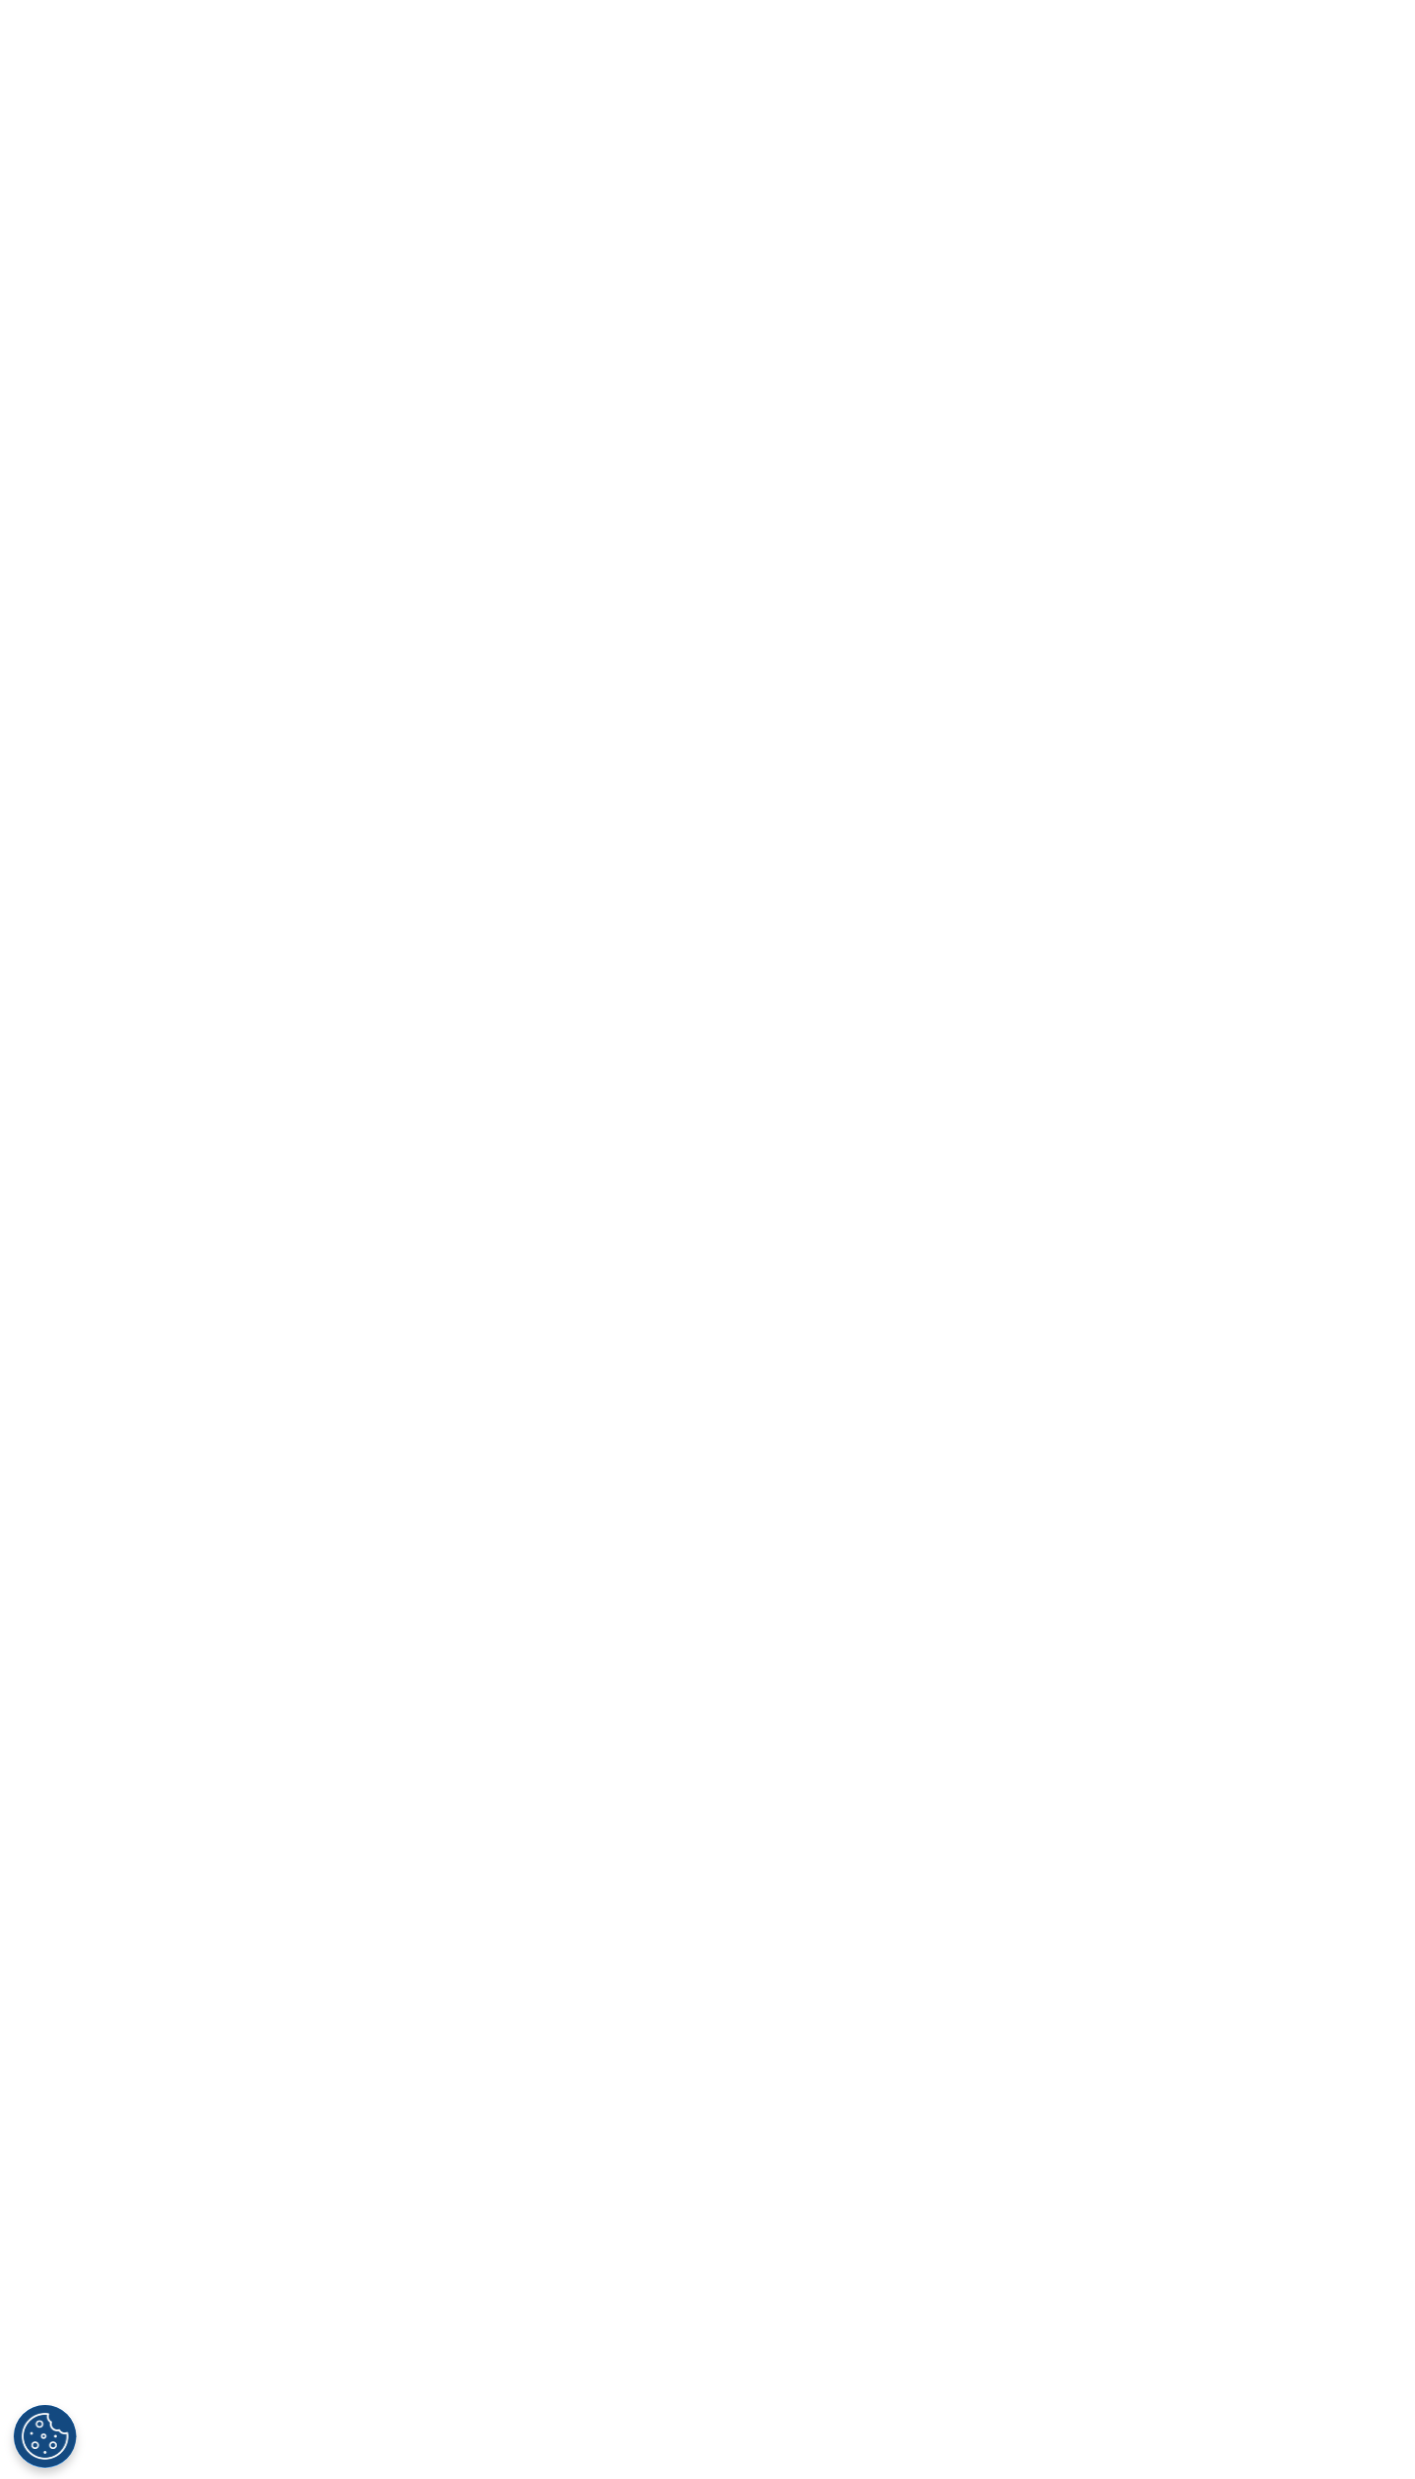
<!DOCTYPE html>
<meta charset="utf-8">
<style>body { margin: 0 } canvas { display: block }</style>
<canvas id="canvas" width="1415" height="2479"></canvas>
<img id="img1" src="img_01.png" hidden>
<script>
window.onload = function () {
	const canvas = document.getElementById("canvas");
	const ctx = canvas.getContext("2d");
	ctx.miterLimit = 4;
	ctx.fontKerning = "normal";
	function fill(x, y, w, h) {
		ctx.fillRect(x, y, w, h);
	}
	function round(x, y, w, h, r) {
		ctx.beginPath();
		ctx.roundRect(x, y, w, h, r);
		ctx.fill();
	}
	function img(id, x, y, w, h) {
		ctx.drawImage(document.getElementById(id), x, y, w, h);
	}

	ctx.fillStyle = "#FFFFFF";
	fill(0, 0, 1415, 2479);
	ctx.fillStyle = "rgba(0, 0, 0, 0.2)";
	ctx.filter = "blur(5px)";
	ctx.beginPath();
	ctx.roundRect(14, 2410, 62, 63, 31);
	ctx.fill();
	ctx.filter = "none";
	ctx.fillStyle = "#6AAAE4";
	round(14, 2405, 62, 63, 31);
	img("img1", 13, 2405, 64, 63);
};
</script>
